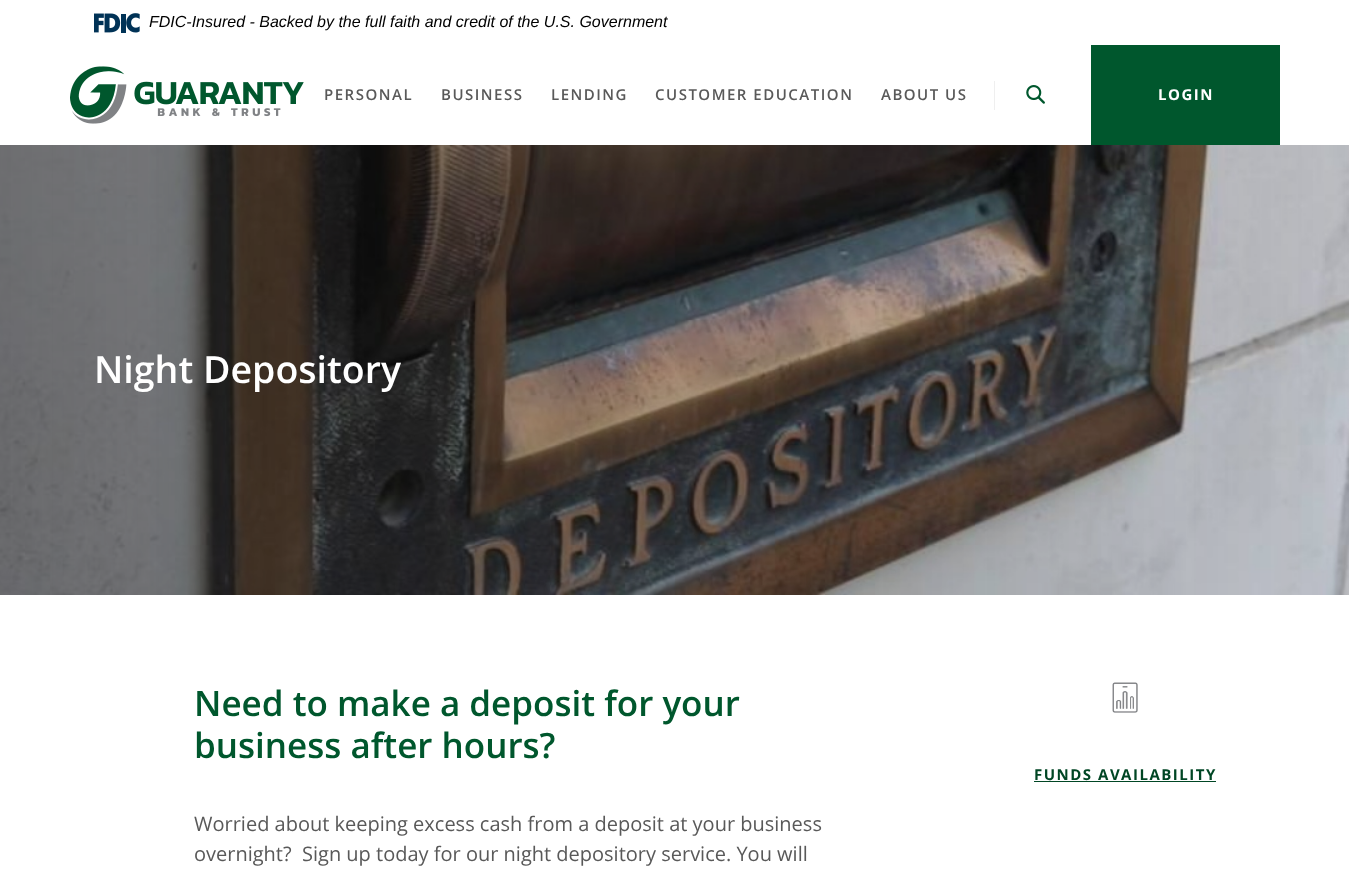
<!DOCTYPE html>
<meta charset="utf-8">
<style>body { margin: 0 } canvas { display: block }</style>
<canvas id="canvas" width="1349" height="870"></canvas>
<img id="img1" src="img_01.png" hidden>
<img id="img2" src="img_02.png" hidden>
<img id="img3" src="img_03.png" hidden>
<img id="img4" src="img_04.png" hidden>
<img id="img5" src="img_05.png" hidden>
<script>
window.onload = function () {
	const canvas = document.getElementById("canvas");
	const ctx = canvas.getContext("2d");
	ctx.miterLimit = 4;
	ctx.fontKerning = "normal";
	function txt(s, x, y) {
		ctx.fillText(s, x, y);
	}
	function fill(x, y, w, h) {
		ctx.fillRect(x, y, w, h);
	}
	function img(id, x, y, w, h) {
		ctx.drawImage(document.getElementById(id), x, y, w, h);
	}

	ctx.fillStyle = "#FFFFFF";
	fill(0, 0, 1349, 870);
	img("img1", 94, 13, 46, 20);
	img("img2", 70, 66, 234, 58);
	ctx.fillStyle = "#EFEFEF";
	fill(994, 81, 1, 29);
	img("img3", 1026, 85, 19, 19);
	ctx.fillStyle = "#00572D";
	fill(1091, 45, 189, 100);
	img("img4", 0, 145, 1349, 450);
	img("img5", 1112, 682, 26, 31);
	ctx.fillStyle = "#004624";
	fill(1034, 781, 182, 1);
	ctx.font = "italic 16px Liberation Sans";
	ctx.fillStyle = "#000000";
	txt("FDIC-Insured - Backed by the full faith and credit of the U.S. Government", 149, 27);
	ctx.letterSpacing = "1.5px";
	ctx.font = "600 15px Open Sans";
	ctx.fillStyle = "#595959";
	txt("PERSONAL", 324, 100);
	txt("BUSINESS", 441, 100);
	txt("LENDING", 551, 100);
	txt("CUSTOMER EDUCATION", 655, 100);
	txt("ABOUT US", 881, 100);
	ctx.font = "bold 15px Open Sans";
	ctx.fillStyle = "#FFFFFF";
	txt("LOGIN", 1158, 100);
	ctx.letterSpacing = "0px";
	ctx.font = "600 37.5px Open Sans";
	txt("Night Depository", 94, 383);
	ctx.font = "600 35px Open Sans";
	ctx.fillStyle = "#00572D";
	txt("Need to make a deposit for your", 194, 716);
	txt("business after hours?", 194, 758);
	ctx.font = "20px Open Sans";
	ctx.fillStyle = "#595959";
	txt("Worried about keeping excess cash from a deposit at your business", 194, 831);
	txt("overnight?  Sign up today for our night depository service. You will", 194, 861);
	ctx.letterSpacing = "1.5px";
	ctx.font = "bold 15px Open Sans";
	ctx.fillStyle = "#004624";
	txt("FUNDS AVAILABILITY", 1034, 780);
};
</script>
